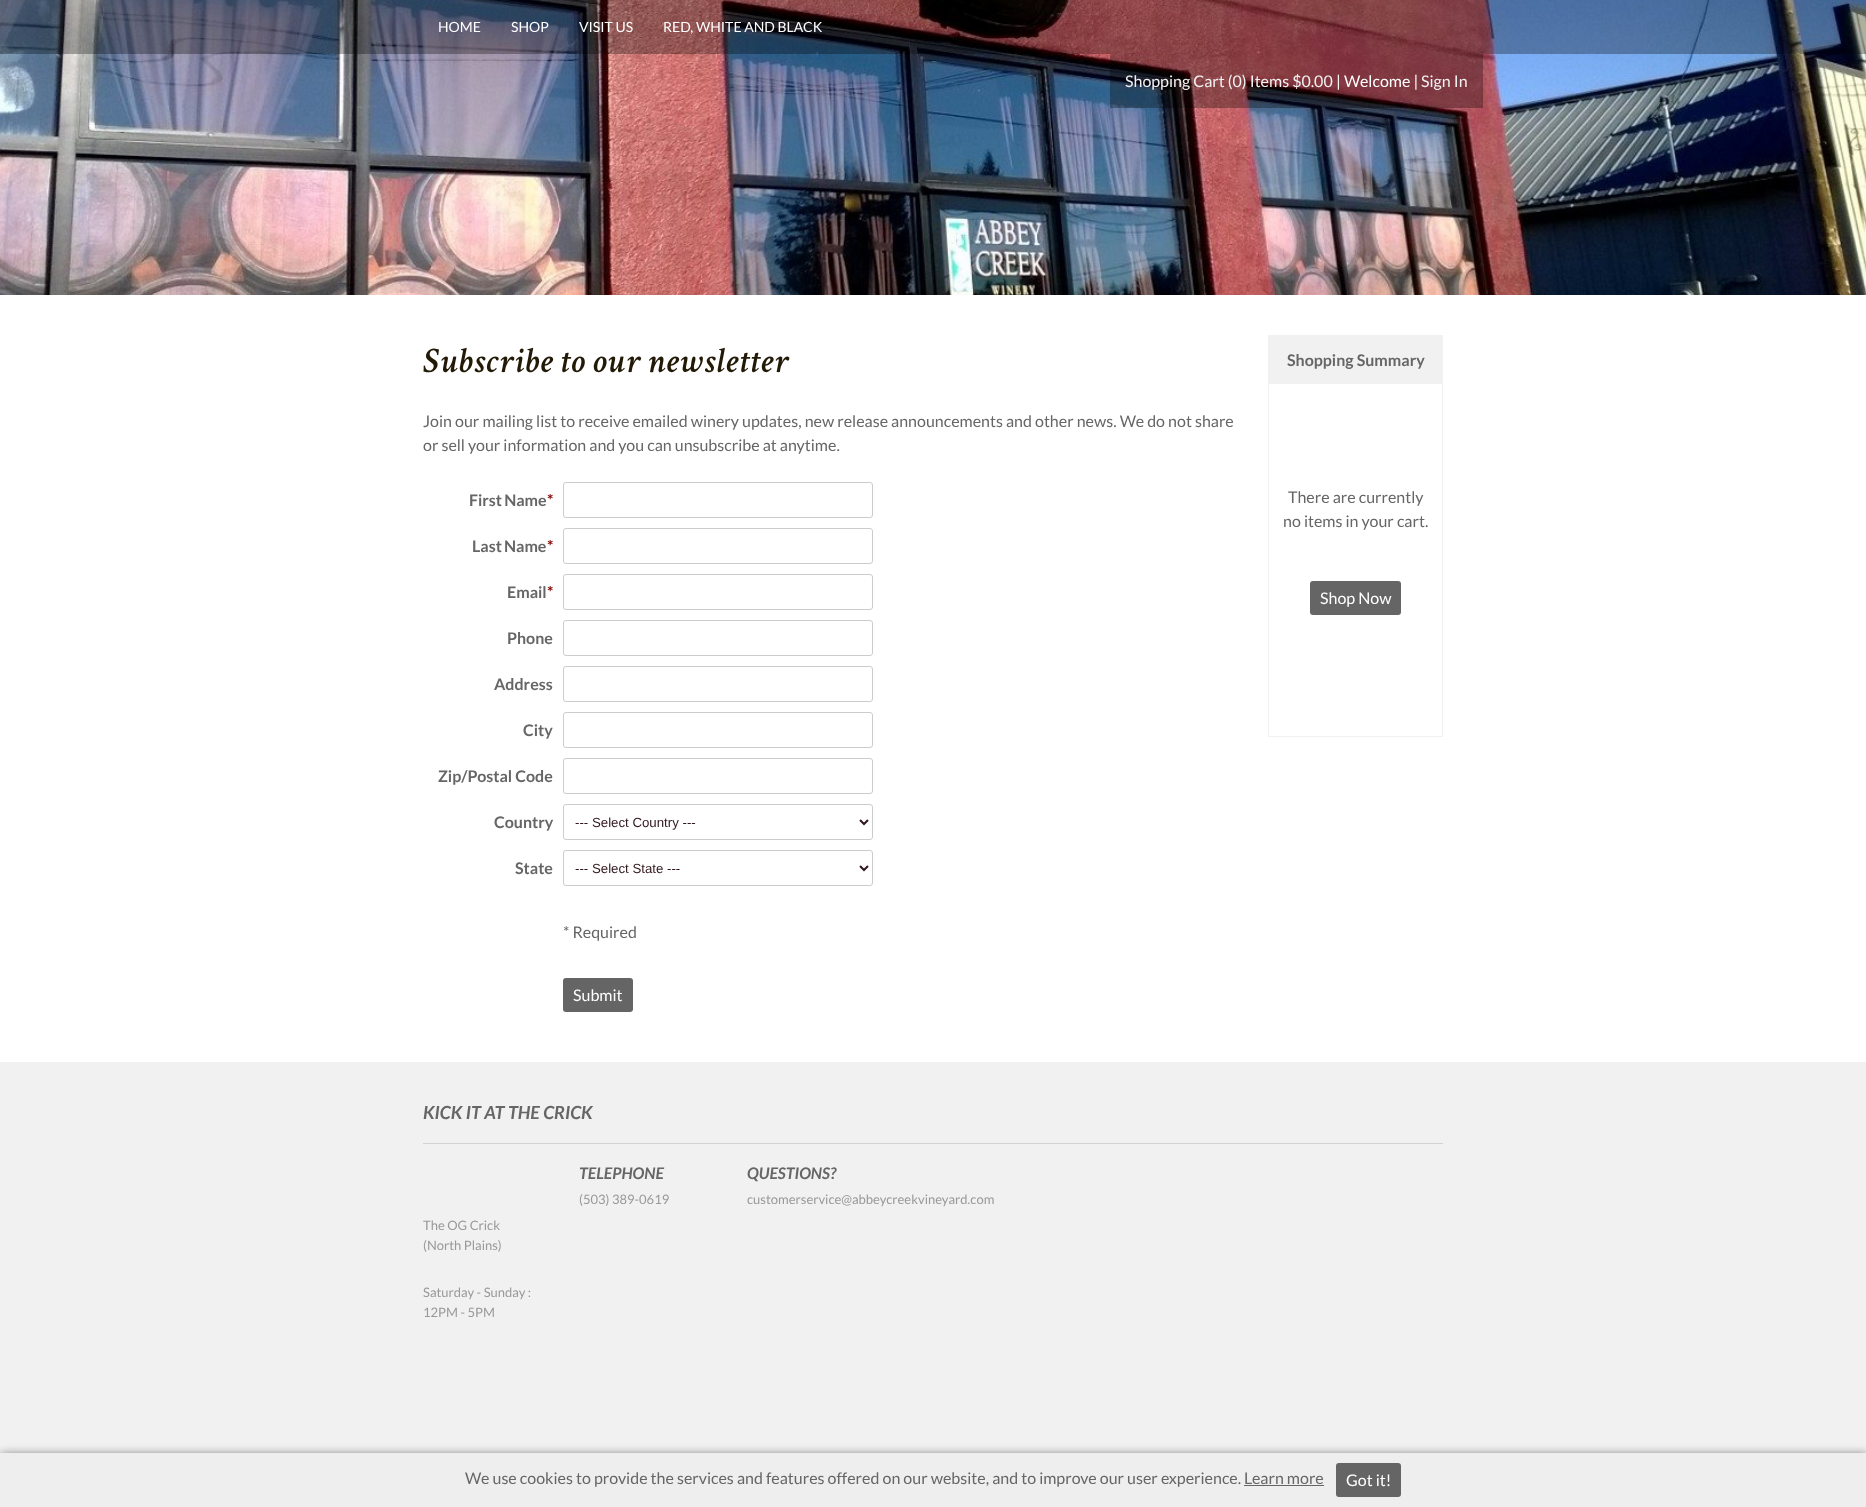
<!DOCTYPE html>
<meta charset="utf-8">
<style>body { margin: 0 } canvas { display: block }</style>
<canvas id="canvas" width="1866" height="1507"></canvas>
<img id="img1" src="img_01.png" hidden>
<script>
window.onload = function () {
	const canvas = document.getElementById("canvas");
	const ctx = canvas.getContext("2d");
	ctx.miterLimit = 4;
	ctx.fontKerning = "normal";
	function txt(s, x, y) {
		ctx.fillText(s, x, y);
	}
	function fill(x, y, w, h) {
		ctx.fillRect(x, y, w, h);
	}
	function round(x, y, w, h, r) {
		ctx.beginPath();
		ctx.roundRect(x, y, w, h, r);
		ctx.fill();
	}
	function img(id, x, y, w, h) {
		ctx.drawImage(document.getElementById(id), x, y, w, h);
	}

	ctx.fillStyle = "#F1F1F1";
	fill(0, 0, 1866, 1507);
	img("img1", 0, 0, 1866, 295);
	ctx.fillStyle = "rgba(0, 0, 0, 0.3)";
	fill(0, 0, 1866, 54);
	fill(1110, 54, 373, 54);
	ctx.fillStyle = "#FFFFFF";
	fill(0, 295, 1866, 767);
	ctx.beginPath();
	ctx.roundRect(563.5, 482.5, 309, 35, 2.5);
	ctx.strokeStyle = "#CCCCCC";
	ctx.stroke();
	ctx.beginPath();
	ctx.roundRect(563.5, 528.5, 309, 35, 2.5);
	ctx.stroke();
	ctx.beginPath();
	ctx.roundRect(563.5, 574.5, 309, 35, 2.5);
	ctx.stroke();
	ctx.beginPath();
	ctx.roundRect(563.5, 620.5, 309, 35, 2.5);
	ctx.stroke();
	ctx.beginPath();
	ctx.roundRect(563.5, 666.5, 309, 35, 2.5);
	ctx.stroke();
	ctx.beginPath();
	ctx.roundRect(563.5, 712.5, 309, 35, 2.5);
	ctx.stroke();
	ctx.beginPath();
	ctx.roundRect(563.5, 758.5, 309, 35, 2.5);
	ctx.stroke();
	ctx.beginPath();
	ctx.roundRect(563.5, 804.5, 309, 35, 2.5);
	ctx.stroke();
	ctx.beginPath();
	ctx.moveTo(860, 820);
	ctx.lineTo(864, 824);
	ctx.lineTo(868, 820);
	ctx.strokeStyle = "#32171D";
	ctx.lineWidth = 2;
	ctx.stroke();
	ctx.beginPath();
	ctx.roundRect(563.5, 850.5, 309, 35, 2.5);
	ctx.strokeStyle = "#CCCCCC";
	ctx.lineWidth = 1;
	ctx.stroke();
	ctx.beginPath();
	ctx.moveTo(860, 866);
	ctx.lineTo(864, 870);
	ctx.lineTo(868, 866);
	ctx.strokeStyle = "#32171D";
	ctx.lineWidth = 2;
	ctx.stroke();
	ctx.fillStyle = "#656565";
	round(563, 978, 70, 34, 3);
	ctx.strokeStyle = "#F1F1F1";
	ctx.lineWidth = 1;
	ctx.strokeRect(1268.5, 335.5, 174, 401);
	ctx.fillStyle = "#F1F1F1";
	fill(1269, 336, 173, 48);
	ctx.fillStyle = "#656565";
	round(1310, 581, 91, 34, 3);
	ctx.fillStyle = "#D2D2D2";
	fill(423, 1143, 1020, 1);
	ctx.fillStyle = "rgba(0, 0, 0, 0.5)";
	ctx.filter = "blur(5px)";
	ctx.beginPath();
	ctx.rect(1, 1454, 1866, 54);
	ctx.fill();
	ctx.filter = "none";
	ctx.fillStyle = "#EEEEEE";
	fill(0, 1453, 1866, 54);
	ctx.fillStyle = "#656565";
	fill(1244, 1485, 80, 1);
	round(1336, 1463, 65, 34, 3);
	ctx.font = "14px Lato";
	ctx.fillStyle = "#FFFFFF";
	txt("HOME", 438, 32);
	txt("SHOP", 511, 32);
	txt("VISIT US", 579, 32);
	txt("RED, WHITE AND BLACK", 663, 32);
	ctx.font = "16px Lato";
	ctx.fillStyle = "#F1F1F1";
	txt("Shopping Cart (0) Items $0.00", 1125, 87);
	ctx.fillStyle = "#FFFFFF";
	txt("| Welcome |", 1336, 87);
	ctx.fillStyle = "#F1F1F1";
	txt("Sign In", 1421, 87);
	ctx.letterSpacing = "1px";
	ctx.font = "italic 600 36px Crimson Text";
	ctx.fillStyle = "#221907";
	txt("Subscribe to our newsletter", 423, 372);
	ctx.letterSpacing = "0px";
	ctx.font = "16px Lato";
	ctx.fillStyle = "#666666";
	txt("Join our mailing list to receive emailed winery updates, new release announcements and other news. We do not share", 423, 427);
	txt("or sell your information and you can unsubscribe at anytime.", 423, 451);
	ctx.wordSpacing = "-1px";
	ctx.font = "bold 16px Lato";
	txt("First Name", 469, 506);
	ctx.wordSpacing = "0px";
	ctx.fillStyle = "#800000";
	txt("*", 547, 506);
	ctx.wordSpacing = "-1px";
	ctx.fillStyle = "#666666";
	txt("Last Name", 472, 552);
	ctx.wordSpacing = "0px";
	ctx.fillStyle = "#800000";
	txt("*", 547, 552);
	ctx.fillStyle = "#666666";
	txt("Email", 507, 598);
	ctx.fillStyle = "#800000";
	txt("*", 547, 598);
	ctx.fillStyle = "#666666";
	txt("Phone", 507, 644);
	txt("Address", 494, 690);
	txt("City", 523, 736);
	txt("Zip/Postal Code", 438, 782);
	txt("Country", 494, 828);
	ctx.font = "13.25px Liberation Sans";
	ctx.fillStyle = "#32171D";
	txt("--- Select Country ---", 575, 827);
	ctx.font = "bold 16px Lato";
	ctx.fillStyle = "#666666";
	txt("State", 515, 874);
	ctx.font = "13.25px Liberation Sans";
	ctx.fillStyle = "#32171D";
	txt("--- Select State ---", 575, 873);
	ctx.font = "16px Lato";
	ctx.fillStyle = "#666666";
	txt("* Required", 563, 938);
	ctx.fillStyle = "#FFFFFF";
	txt("Submit", 573, 1001);
	ctx.font = "bold 16px Lato";
	ctx.fillStyle = "#666666";
	txt("Shopping Summary", 1287, 366);
	ctx.font = "16px Lato";
	txt("There are currently", 1288, 503);
	txt("no items in your cart.", 1283, 527);
	ctx.fillStyle = "#FFFFFF";
	txt("Shop Now", 1320, 604);
	ctx.font = "italic bold 18px Lato";
	ctx.fillStyle = "#666666";
	txt("KICK IT AT THE CRICK", 423, 1119);
	ctx.font = "italic bold 16px Lato";
	txt("TELEPHONE", 579, 1179);
	ctx.font = "13px Lato";
	ctx.fillStyle = "#999999";
	txt("(503) 389-0619", 579, 1204);
	ctx.font = "italic bold 16px Lato";
	ctx.fillStyle = "#666666";
	txt("QUESTIONS?", 747, 1179);
	ctx.font = "13px Lato";
	ctx.fillStyle = "#999999";
	txt("customerservice@abbeycreekvineyard.com", 747, 1204);
	txt("The OG Crick", 423, 1230);
	txt("(North Plains)", 423, 1250);
	txt("Saturday - Sunday :", 423, 1297);
	txt("12PM - 5PM", 423, 1317);
	ctx.font = "16px Lato";
	ctx.fillStyle = "#666666";
	txt("We use cookies to provide the services and features offered on our website, and to improve our user experience.", 465, 1484);
	txt("Learn more", 1244, 1484);
	ctx.fillStyle = "#FFFFFF";
	txt("Got it!", 1346, 1486);
};
</script>
